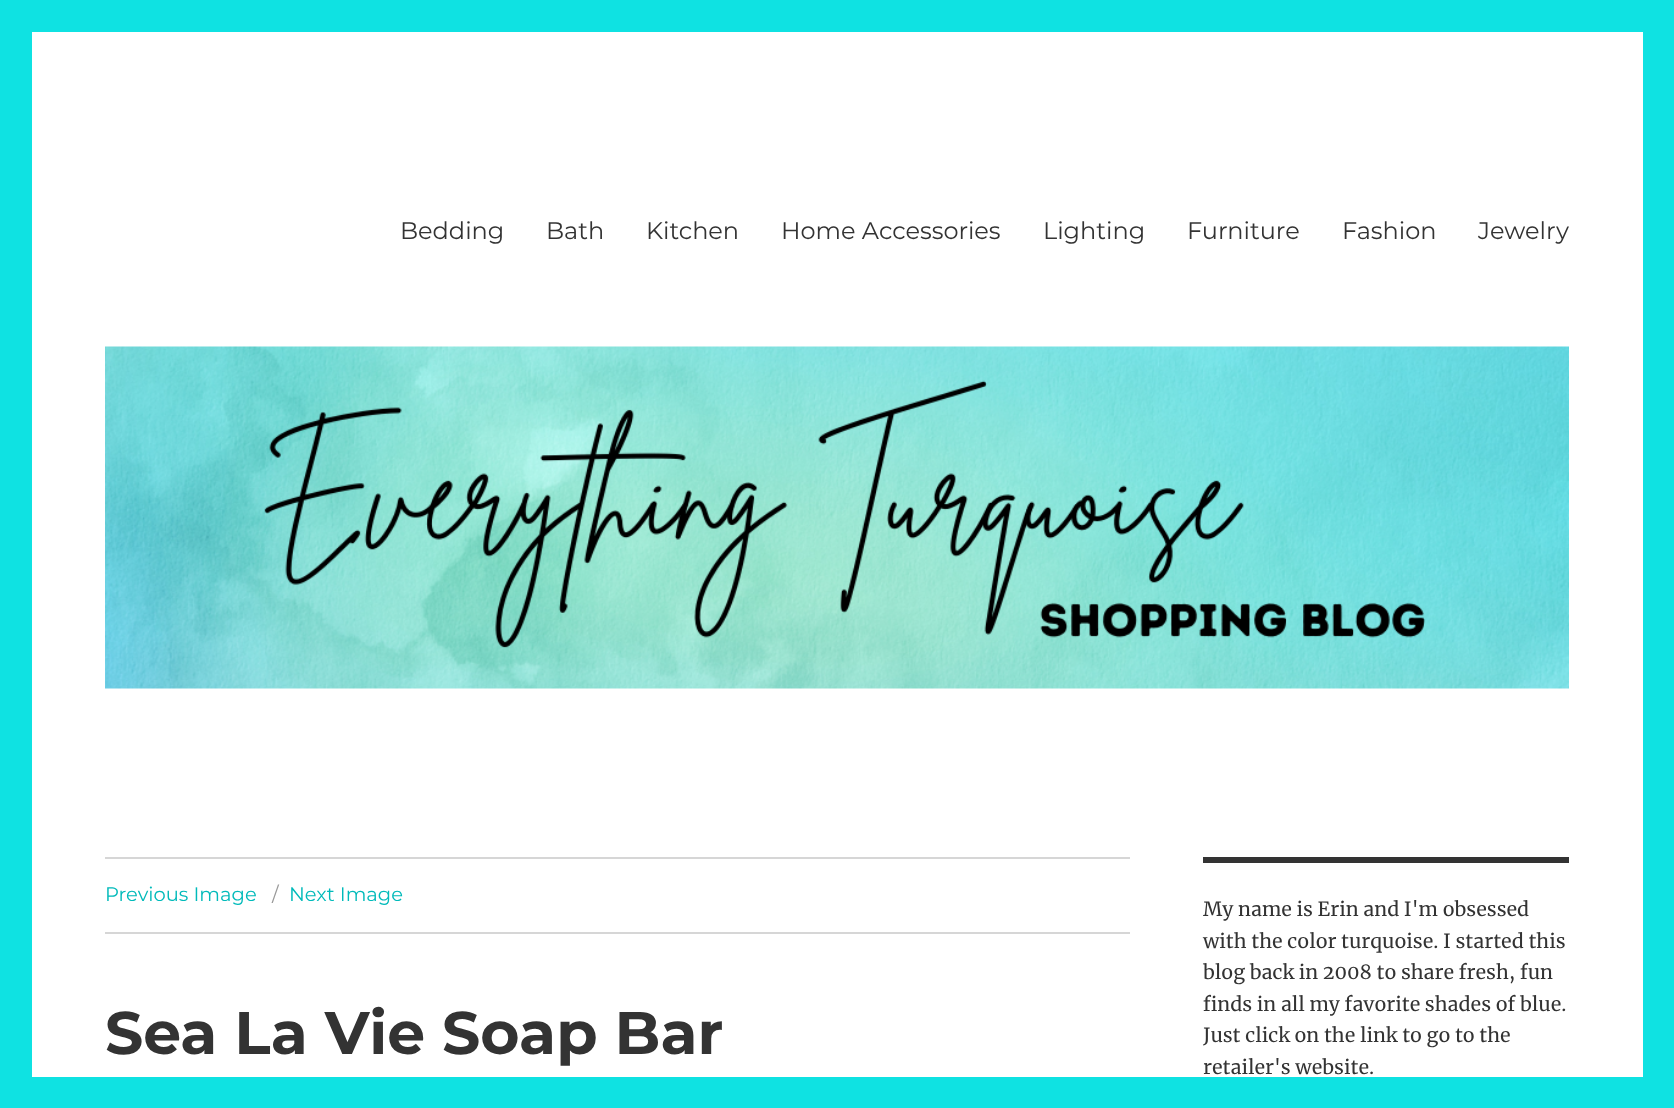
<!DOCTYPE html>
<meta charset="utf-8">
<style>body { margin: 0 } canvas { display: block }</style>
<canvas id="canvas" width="1674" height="1108"></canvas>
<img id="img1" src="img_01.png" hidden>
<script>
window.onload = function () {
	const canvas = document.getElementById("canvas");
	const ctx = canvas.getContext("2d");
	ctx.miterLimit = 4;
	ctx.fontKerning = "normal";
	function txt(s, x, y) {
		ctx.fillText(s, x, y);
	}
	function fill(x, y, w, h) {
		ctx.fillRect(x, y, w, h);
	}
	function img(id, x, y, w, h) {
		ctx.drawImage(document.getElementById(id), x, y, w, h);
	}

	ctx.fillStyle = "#0FE2E2";
	fill(0, 0, 1674, 1108);
	ctx.fillStyle = "#FFFFFF";
	fill(32, 32, 1611, 1045);
	img("img1", 105, 346, 1464, 343);
	ctx.fillStyle = "#D6D6D6";
	fill(105, 857, 1025, 2);
	fill(105, 932, 1025, 2);
	ctx.fillStyle = "#333333";
	fill(1203, 857, 366, 6);
	ctx.font = "100 24px Montserrat";
	txt("Bedding", 400, 239);
	txt("Bath", 546, 239);
	txt("Kitchen", 646, 239);
	txt("Home Accessories", 781, 239);
	txt("Lighting", 1043, 239);
	txt("Furniture", 1187, 239);
	txt("Fashion", 1342, 239);
	txt("Jewelry", 1478, 239);
	ctx.font = "100 19.5px Montserrat";
	ctx.fillStyle = "#00BABA";
	txt("Previous Image", 105, 901);
	ctx.fillStyle = "#999999";
	txt("/", 272, 901);
	ctx.fillStyle = "#00BABA";
	txt("Next Image", 289, 901);
	ctx.font = "100 60px 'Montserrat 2'";
	ctx.fillStyle = "#333333";
	txt("Sea La Vie Soap Bar", 105, 1054);
	ctx.font = "19.5px Merriweather";
	txt("My name is Erin and I'm obsessed", 1203, 916);
	txt("with the color turquoise. I started this", 1203, 948);
	txt("blog back in 2008 to share fresh, fun", 1203, 979);
	txt("finds in all my favorite shades of blue.", 1203, 1011);
	txt("Just click on the link to go to the", 1203, 1042);
	txt("retailer's website.", 1203, 1074);
};
</script>
